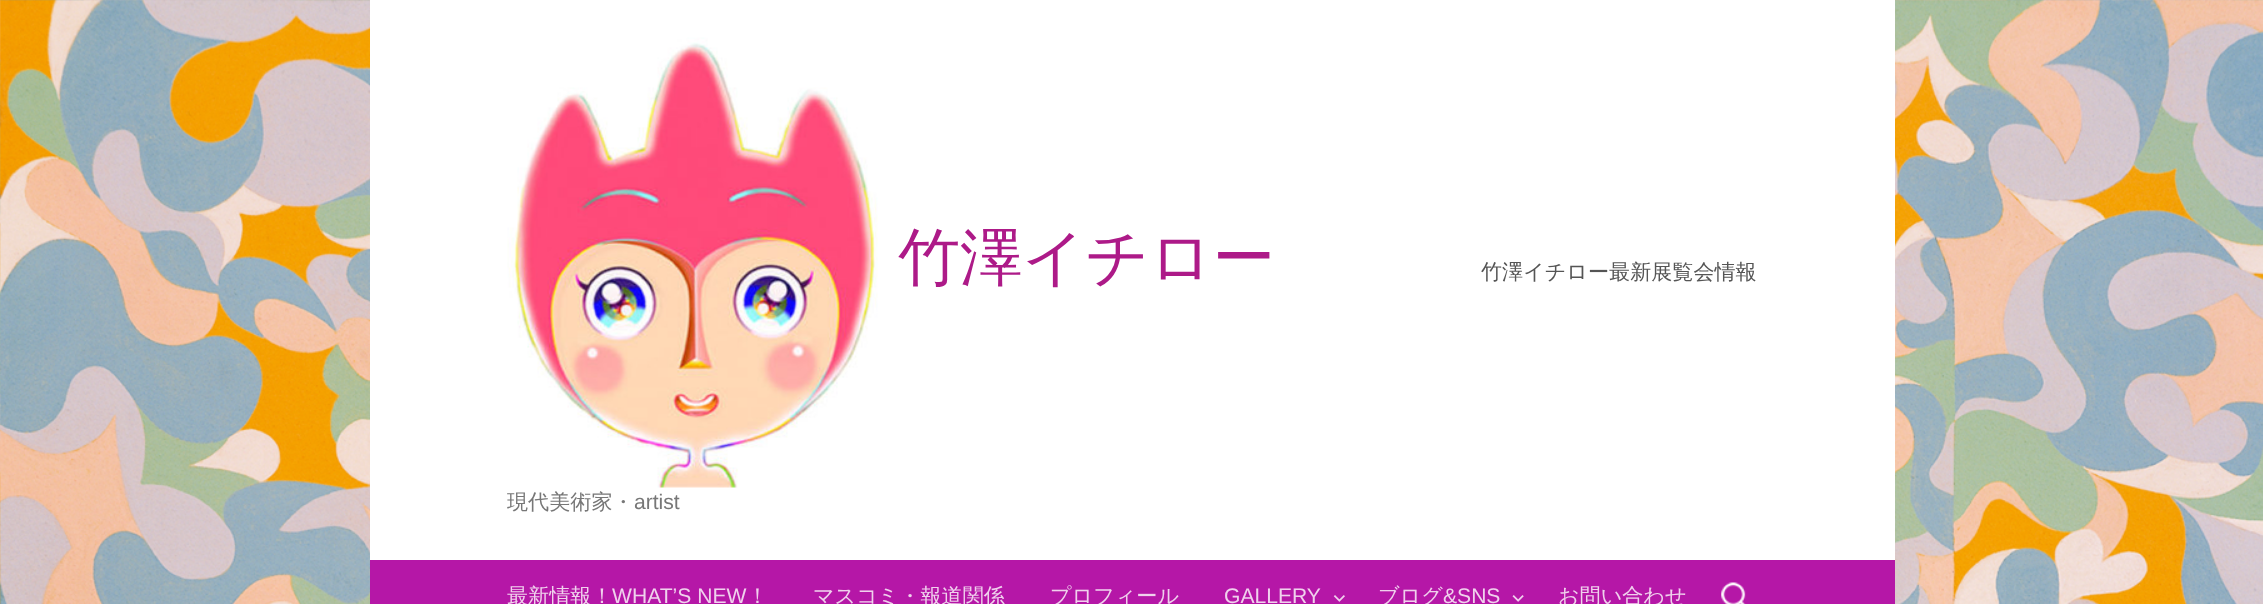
<!DOCTYPE html>
<meta charset="utf-8">
<style>body { margin: 0 } canvas { display: block }</style>
<canvas id="canvas" width="2263" height="604"></canvas>
<img id="img1" src="img_01.png" hidden>
<img id="img2" src="img_02.png" hidden>
<img id="img3" src="img_03.png" hidden>
<img id="img4" src="img_04.png" hidden>
<img id="img5" src="img_05.png" hidden>
<script>
window.onload = function () {
	const canvas = document.getElementById("canvas");
	const ctx = canvas.getContext("2d");
	ctx.miterLimit = 4;
	ctx.fontKerning = "normal";
	function txt(s, x, y) {
		ctx.fillText(s, x, y);
	}
	function fill(x, y, w, h) {
		ctx.fillRect(x, y, w, h);
	}
	function img(id, x, y, w, h) {
		ctx.drawImage(document.getElementById(id), x, y, w, h);
	}

	ctx.fillStyle = "#FFFFFF";
	fill(0, 0, 2263, 604);
	img("img1", 0, 0, 2263, 604);
	fill(370, 0, 1525, 560);
	img("img2", 507, 37, 371, 451);
	ctx.fillStyle = "#B517A7";
	fill(370, 560, 1525, 44);
	img("img3", 1333, 595, 12, 7);
	img("img4", 1512, 595, 12, 7);
	img("img5", 1721, 582, 25, 22);
	ctx.letterSpacing = "-0.5px";
	ctx.font = "500 62.5px WenQuanYi Zen Hei";
	ctx.fillStyle = "#AD1A88";
	txt("竹澤イチロー", 898, 279);
	ctx.letterSpacing = "0px";
	ctx.font = "500 21.1px WenQuanYi Zen Hei";
	ctx.fillStyle = "#777777";
	txt("現代美術家・", 507, 509);
	ctx.font = "21.1px Liberation Sans";
	txt("artist", 634, 509);
	ctx.font = "500 21.1px WenQuanYi Zen Hei";
	ctx.fillStyle = "#555555";
	txt("竹澤イチロー最新展覧会情報", 1481, 279);
	ctx.fillStyle = "#F0D1ED";
	txt("最新情報！", 507, 603);
	ctx.font = "21.1px Liberation Sans";
	txt("WHAT’S NEW", 612, 603);
	ctx.font = "500 21.1px WenQuanYi Zen Hei";
	txt("！", 747, 603);
	txt("マスコミ・報道関係", 813, 603);
	txt("プロフィール", 1050, 603);
	ctx.font = "21.1px Liberation Sans";
	txt("GALLERY", 1224, 603);
	ctx.font = "500 21.1px WenQuanYi Zen Hei";
	txt("ブログ", 1378, 603);
	ctx.font = "21.1px Liberation Sans";
	txt("&SNS", 1443, 603);
	ctx.font = "500 21.1px WenQuanYi Zen Hei";
	txt("お問い合わせ", 1558, 603);
};
</script>
